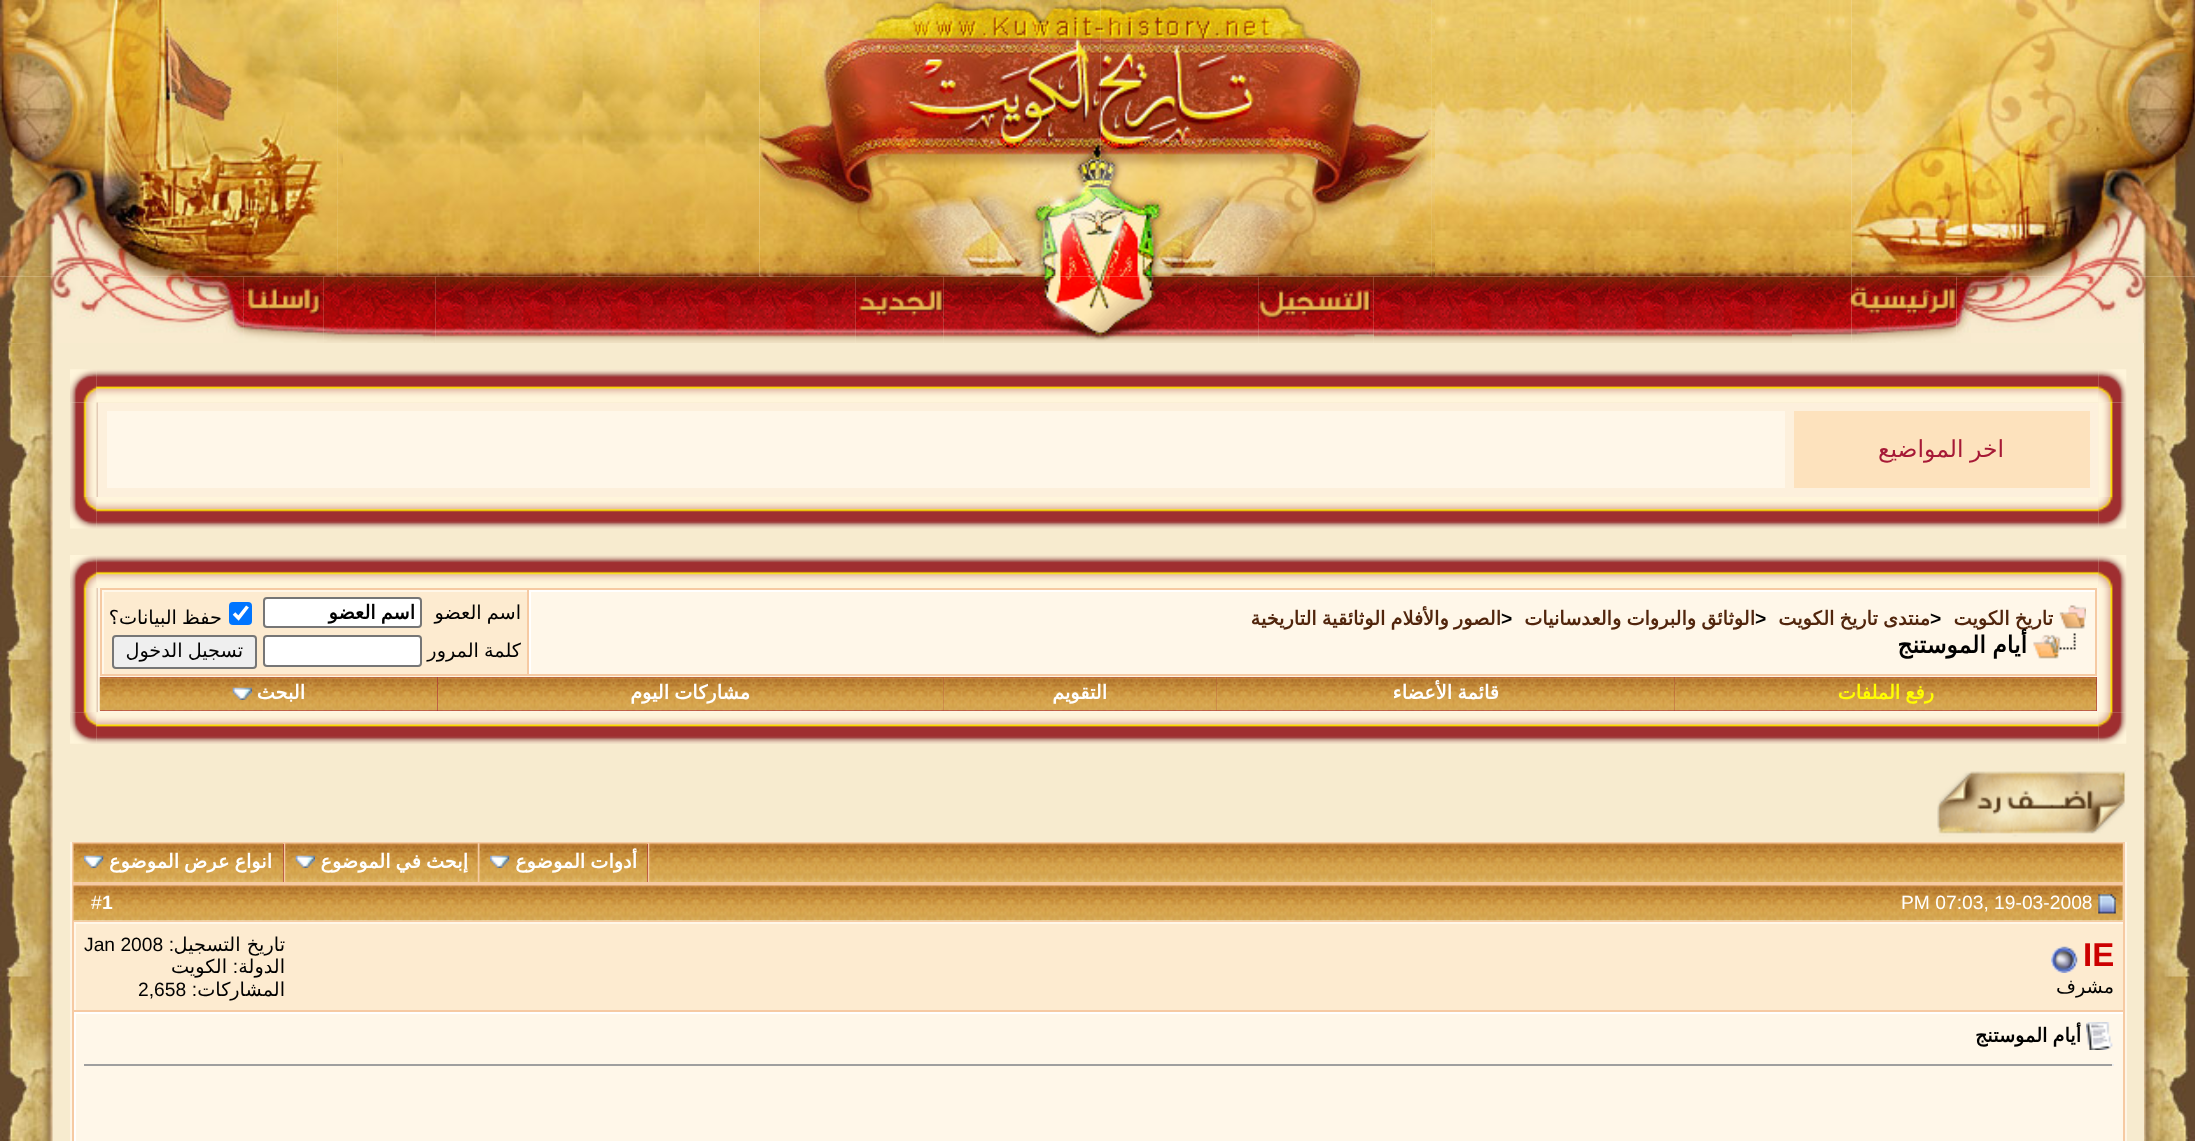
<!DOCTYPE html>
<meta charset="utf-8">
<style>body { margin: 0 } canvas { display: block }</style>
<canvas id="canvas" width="2195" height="1141"></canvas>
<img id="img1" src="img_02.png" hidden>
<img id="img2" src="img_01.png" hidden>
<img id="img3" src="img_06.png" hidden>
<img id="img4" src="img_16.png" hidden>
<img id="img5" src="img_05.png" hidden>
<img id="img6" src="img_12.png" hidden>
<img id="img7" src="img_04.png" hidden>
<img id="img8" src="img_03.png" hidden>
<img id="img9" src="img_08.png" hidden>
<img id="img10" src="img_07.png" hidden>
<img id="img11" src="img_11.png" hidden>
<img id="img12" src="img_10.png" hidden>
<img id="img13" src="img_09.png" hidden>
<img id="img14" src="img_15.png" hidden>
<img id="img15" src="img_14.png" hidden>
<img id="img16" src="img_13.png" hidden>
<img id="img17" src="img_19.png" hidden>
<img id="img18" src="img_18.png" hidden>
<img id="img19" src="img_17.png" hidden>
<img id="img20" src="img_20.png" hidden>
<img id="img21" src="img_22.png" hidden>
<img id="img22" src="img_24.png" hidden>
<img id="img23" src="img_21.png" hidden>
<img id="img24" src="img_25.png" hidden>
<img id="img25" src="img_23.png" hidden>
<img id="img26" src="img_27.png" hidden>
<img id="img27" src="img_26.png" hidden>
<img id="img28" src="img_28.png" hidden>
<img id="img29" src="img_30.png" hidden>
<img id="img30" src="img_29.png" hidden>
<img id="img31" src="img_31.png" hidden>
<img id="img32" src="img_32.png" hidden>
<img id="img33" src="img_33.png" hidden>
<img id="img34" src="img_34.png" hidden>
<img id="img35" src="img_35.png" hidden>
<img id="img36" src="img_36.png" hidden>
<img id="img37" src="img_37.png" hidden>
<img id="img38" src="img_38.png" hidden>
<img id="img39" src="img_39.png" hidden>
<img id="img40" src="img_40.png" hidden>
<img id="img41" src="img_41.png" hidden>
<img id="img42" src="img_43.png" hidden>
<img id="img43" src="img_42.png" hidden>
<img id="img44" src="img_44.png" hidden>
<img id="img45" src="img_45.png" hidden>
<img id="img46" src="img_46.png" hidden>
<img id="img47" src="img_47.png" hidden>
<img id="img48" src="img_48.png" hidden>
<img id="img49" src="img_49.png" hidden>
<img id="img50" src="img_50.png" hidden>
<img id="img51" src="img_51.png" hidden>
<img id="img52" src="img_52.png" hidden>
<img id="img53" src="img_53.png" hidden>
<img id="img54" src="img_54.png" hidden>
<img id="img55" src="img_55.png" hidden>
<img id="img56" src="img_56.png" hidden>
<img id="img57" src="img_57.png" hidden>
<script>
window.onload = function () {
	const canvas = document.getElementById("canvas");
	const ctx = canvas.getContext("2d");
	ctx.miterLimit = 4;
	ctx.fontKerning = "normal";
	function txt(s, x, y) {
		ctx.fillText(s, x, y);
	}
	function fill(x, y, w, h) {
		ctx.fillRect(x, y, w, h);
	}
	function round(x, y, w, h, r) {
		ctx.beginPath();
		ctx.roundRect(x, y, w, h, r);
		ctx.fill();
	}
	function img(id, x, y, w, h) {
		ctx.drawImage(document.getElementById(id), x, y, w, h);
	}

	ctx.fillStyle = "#F7EBCF";
	fill(0, 0, 2195, 1141);
	img("img1", 1431, 0, 421, 277);
	img("img2", 1851, 0, 344, 277);
	img("img3", 337, 0, 423, 277);
	img("img4", 435, 276, 421, 67);
	img("img5", 759, 0, 342, 277);
	img("img6", 1373, 276, 419, 67);
	img("img7", 1100, 0, 332, 277);
	img("img8", 1431, 0, 4, 277);
	img("img9", 0, 0, 338, 277);
	img("img10", 337, 0, 6, 277);
	img("img11", 1792, 276, 60, 67);
	img("img12", 1851, 276, 106, 67);
	img("img13", 1956, 276, 239, 67);
	img("img14", 855, 276, 89, 67);
	img("img15", 943, 276, 316, 67);
	img("img16", 1258, 276, 116, 67);
	img("img17", 0, 276, 244, 67);
	img("img18", 243, 276, 81, 67);
	img("img19", 323, 276, 113, 67);
	img("img20", 2144, 343, 51, 798);
	img("img21", 96, 369, 2003, 34);
	img("img22", 2098, 402, 29, 95);
	img("img23", 2098, 369, 29, 34);
	img("img24", 70, 402, 28, 95);
	img("img25", 70, 369, 27, 34);
	ctx.fillStyle = "#FDF0DC";
	fill(98, 403, 2000, 94);
	ctx.fillStyle = "#FDE2BD";
	fill(1794, 411, 296, 77);
	ctx.fillStyle = "#FFF7E9";
	fill(107, 411, 1678, 77);
	img("img26", 96, 497, 2003, 32);
	img("img27", 2098, 497, 29, 32);
	img("img28", 70, 497, 27, 32);
	img("img29", 96, 555, 2003, 33);
	img("img30", 2098, 555, 29, 33);
	img("img31", 70, 555, 27, 33);
	img("img32", 2098, 588, 29, 125);
	ctx.fillStyle = "#F6CAA3";
	fill(100, 588, 1997, 88);
	ctx.fillStyle = "#FEF5E5";
	fill(2097, 588, 2, 124);
	fill(98, 676, 2000, 1);
	fill(98, 588, 2, 89);
	ctx.fillStyle = "#FFF7E9";
	fill(531, 592, 1564, 82);
	ctx.fillStyle = "#FFFFFF";
	fill(529, 590, 1566, 2);
	fill(529, 590, 2, 84);
	img("img33", 2059, 605, 27, 24);
	img("img34", 2033, 633, 43, 26);
	ctx.fillStyle = "#FDEBD0";
	fill(104, 592, 423, 82);
	ctx.fillStyle = "#FFF7E9";
	fill(102, 590, 425, 2);
	fill(102, 590, 2, 84);
	ctx.fillStyle = "#FFFFFF";
	ctx.beginPath();
	ctx.roundRect(264, 598, 157, 29, 3);
	ctx.fill();
	ctx.strokeStyle = "#767676";
	ctx.lineWidth = 2;
	ctx.stroke();
	ctx.fillStyle = "#0075FF";
	round(229, 602, 23, 23, 4);
	ctx.beginPath();
	ctx.moveTo(234, 613.5);
	ctx.lineTo(238.5, 618);
	ctx.lineTo(247.5, 606.5);
	ctx.strokeStyle = "#FFFFFF";
	ctx.lineWidth = 3.6;
	ctx.stroke();
	ctx.fillStyle = "#FFFFFF";
	ctx.beginPath();
	ctx.roundRect(264, 636, 157, 30, 3);
	ctx.fill();
	ctx.strokeStyle = "#767676";
	ctx.lineWidth = 2;
	ctx.stroke();
	ctx.fillStyle = "#EFEFEF";
	ctx.beginPath();
	ctx.roundRect(113, 636, 143, 32, 3);
	ctx.fill();
	ctx.stroke();
	ctx.fillStyle = "#FEF5E5";
	fill(98, 711, 2000, 2);
	fill(98, 677, 2, 35);
	ctx.fillStyle = "#A61936";
	fill(100, 677, 1997, 34);
	img("img35", 1675, 677, 422, 34);
	img("img36", 1216, 677, 459, 34);
	img("img37", 943, 677, 274, 34);
	img("img38", 438, 677, 506, 34);
	img("img39", 99, 677, 339, 34);
	img("img40", 232, 687, 20, 13);
	img("img41", 70, 588, 28, 125);
	img("img42", 96, 712, 2003, 32);
	img("img43", 2098, 712, 29, 32);
	img("img44", 70, 712, 27, 32);
	img("img45", 1937, 770, 189, 67);
	ctx.fillStyle = "#F6CAA3";
	fill(72, 842, 2053, 299);
	ctx.fillStyle = "#FEF5E5";
	fill(2125, 842, 2, 299);
	fill(70, 842, 2, 299);
	img("img46", 649, 843, 1474, 39);
	ctx.fillStyle = "#A61936";
	fill(647, 844, 1, 38);
	img("img47", 479, 843, 169, 39);
	img("img48", 490, 855, 20, 13);
	img("img49", 285, 843, 193, 39);
	img("img50", 295, 855, 20, 13);
	fill(283, 844, 1, 38);
	img("img51", 73, 843, 211, 39);
	img("img52", 84, 855, 20, 13);
	ctx.fillStyle = "#FEF5E5";
	fill(74, 886, 2049, 35);
	img("img53", 73, 885, 2050, 36);
	img("img54", 2098, 894, 18, 20);
	ctx.fillStyle = "#FDEBD0";
	fill(76, 924, 2047, 86);
	ctx.fillStyle = "#FFF7E9";
	fill(74, 922, 2049, 2);
	fill(74, 922, 2, 88);
	img("img55", 2051, 946, 27, 27);
	fill(76, 1014, 2047, 127);
	ctx.fillStyle = "#FFFFFF";
	fill(74, 1012, 2049, 2);
	fill(74, 1012, 2, 129);
	img("img56", 2086, 1022, 27, 28);
	ctx.fillStyle = "#9F9F9F";
	fill(84, 1064, 2030, 2);
	ctx.fillStyle = "#EEEEEE";
	fill(2112, 1064, 2, 2);
	img("img57", 0, 343, 53, 798);
	ctx.wordSpacing = "-1px";
	ctx.direction = "rtl";
	ctx.font = "23.5px DejaVu Sans";
	ctx.fillStyle = "#A61936";
	txt("اخر المواضيع", 2004, 457);
	ctx.font = "bold 19.25px DejaVu Sans";
	ctx.fillStyle = "#51250C";
	txt("تاريخ الكويت", 2053, 625);
	ctx.wordSpacing = "0px";
	ctx.direction = "ltr";
	ctx.font = "bold 19.25px Liberation Sans";
	ctx.fillStyle = "#000000";
	txt(">", 1930, 625);
	ctx.wordSpacing = "-1px";
	ctx.direction = "rtl";
	ctx.font = "bold 19.25px DejaVu Sans";
	ctx.fillStyle = "#51250C";
	txt("منتدى تاريخ الكويت", 1930, 625);
	ctx.wordSpacing = "0px";
	ctx.direction = "ltr";
	ctx.font = "bold 19.25px Liberation Sans";
	ctx.fillStyle = "#000000";
	txt(">", 1755, 625);
	ctx.wordSpacing = "-1px";
	ctx.direction = "rtl";
	ctx.font = "bold 19.25px DejaVu Sans";
	ctx.fillStyle = "#51250C";
	txt("الوثائق والبروات والعدسانيات", 1755, 625);
	ctx.wordSpacing = "0px";
	ctx.direction = "ltr";
	ctx.font = "bold 19.25px Liberation Sans";
	ctx.fillStyle = "#000000";
	txt(">", 1501, 625);
	ctx.wordSpacing = "-1px";
	ctx.direction = "rtl";
	ctx.font = "bold 19.25px DejaVu Sans";
	ctx.fillStyle = "#51250C";
	txt("الصور والأفلام الوثائقية التاريخية", 1501, 625);
	ctx.font = "bold 23.5px DejaVu Sans";
	ctx.fillStyle = "#000000";
	txt("أيام الموستنج", 2027, 653);
	ctx.font = "19.25px DejaVu Sans";
	txt("اسم العضو", 521, 619);
	ctx.font = "bold 19.25px DejaVu Sans";
	txt("اسم العضو", 415, 619);
	ctx.font = "19.25px DejaVu Sans";
	txt("حفظ البيانات؟", 222, 624);
	txt("كلمة المرور", 521, 657);
	txt("تسجيل الدخول", 243, 657);
	ctx.font = "bold 19.25px DejaVu Sans";
	ctx.fillStyle = "#FFFF00";
	txt("رفع الملفات", 1934, 699);
	ctx.fillStyle = "#FFFFFF";
	txt("قائمة الأعضاء", 1499, 699);
	ctx.wordSpacing = "0px";
	txt("التقويم", 1107, 699);
	ctx.wordSpacing = "-1px";
	txt("مشاركات اليوم", 750, 699);
	ctx.wordSpacing = "0px";
	txt("البحث", 305, 699);
	ctx.wordSpacing = "-1px";
	txt("أدوات الموضوع", 637, 868);
	txt("إبحث في الموضوع", 468, 868);
	txt("انواع عرض", 272, 868);
	ctx.wordSpacing = "0px";
	txt("الموضوع", 179, 868);
	ctx.direction = "ltr";
	ctx.font = "19.25px Liberation Sans";
	txt("PM 07:03, 19-03-2008", 1901, 909);
	ctx.font = "bold 19.25px Liberation Sans";
	txt("1", 102, 909);
	ctx.font = "19.25px Liberation Sans";
	txt("#", 91, 909);
	ctx.font = "bold 33px Liberation Sans";
	ctx.fillStyle = "#CC0000";
	txt("IE", 2083, 966);
	ctx.direction = "rtl";
	ctx.font = "19.25px DejaVu Sans";
	ctx.fillStyle = "#000000";
	txt("مشرف", 2114, 993);
	txt("تاريخ التسجيل", 285, 951);
	ctx.font = "19.25px Liberation Sans";
	txt(":", 174, 951);
	ctx.direction = "ltr";
	txt("Jan 2008", 84, 951);
	ctx.direction = "rtl";
	ctx.font = "19.25px DejaVu Sans";
	txt("الدولة", 285, 973);
	ctx.font = "19.25px Liberation Sans";
	txt(":", 238, 973);
	ctx.font = "19.25px DejaVu Sans";
	txt("الكويت", 227, 973);
	txt("المشاركات", 285, 996);
	ctx.font = "19.25px Liberation Sans";
	txt(":", 197, 996);
	ctx.direction = "ltr";
	txt("2,658", 138, 996);
	ctx.wordSpacing = "-1px";
	ctx.direction = "rtl";
	ctx.font = "bold 19.25px DejaVu Sans";
	txt("أيام الموستنج", 2081, 1042);
};
</script>
